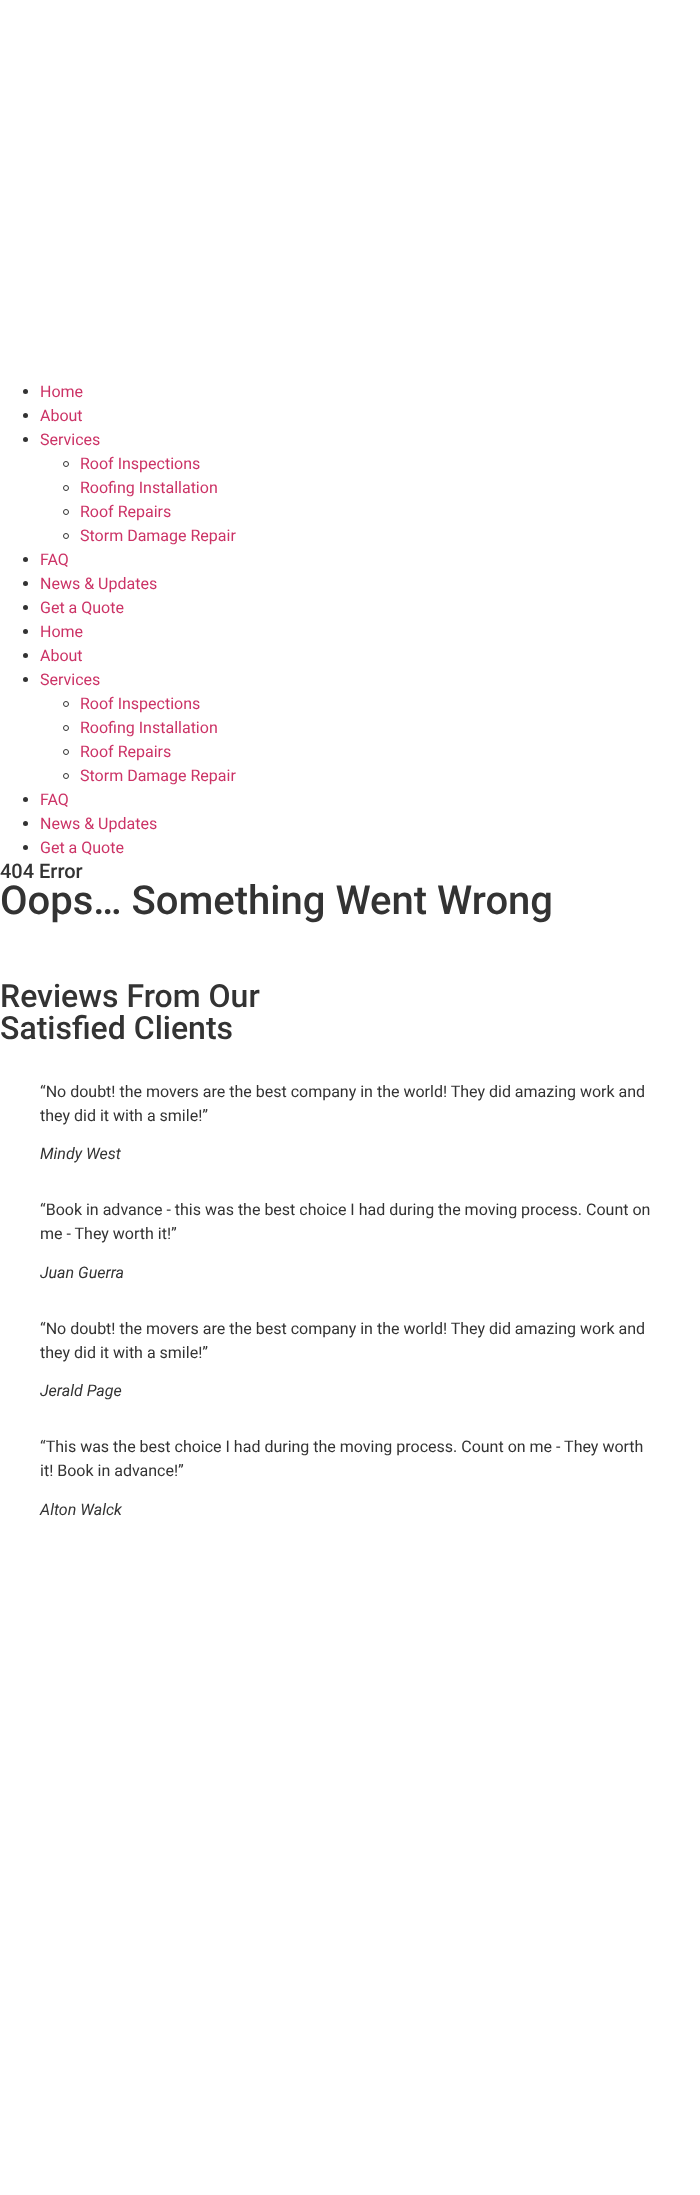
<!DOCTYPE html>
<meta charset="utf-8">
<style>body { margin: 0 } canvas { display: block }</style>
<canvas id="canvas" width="700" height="2195"></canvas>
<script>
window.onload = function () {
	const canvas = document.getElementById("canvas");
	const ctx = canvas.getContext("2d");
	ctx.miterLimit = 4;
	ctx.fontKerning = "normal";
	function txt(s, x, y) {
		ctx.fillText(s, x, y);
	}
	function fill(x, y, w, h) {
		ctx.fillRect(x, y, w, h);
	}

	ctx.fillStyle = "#FFFFFF";
	fill(0, 0, 700, 2195);
	ctx.fillStyle = "#333333";
	ctx.beginPath();
	ctx.arc(25.5, 391.5, 2.5, 0, Math.PI * 2);
	ctx.fill();
	ctx.beginPath();
	ctx.arc(25.5, 415.5, 2.5, 0, Math.PI * 2);
	ctx.fill();
	ctx.beginPath();
	ctx.arc(25.5, 439.5, 2.5, 0, Math.PI * 2);
	ctx.fill();
	ctx.beginPath();
	ctx.arc(66, 464, 2.5, 0, Math.PI * 2);
	ctx.strokeStyle = "#333333";
	ctx.stroke();
	ctx.beginPath();
	ctx.arc(66, 488, 2.5, 0, Math.PI * 2);
	ctx.stroke();
	ctx.beginPath();
	ctx.arc(66, 512, 2.5, 0, Math.PI * 2);
	ctx.stroke();
	ctx.beginPath();
	ctx.arc(66, 536, 2.5, 0, Math.PI * 2);
	ctx.stroke();
	ctx.beginPath();
	ctx.arc(25.5, 559.5, 2.5, 0, Math.PI * 2);
	ctx.fill();
	ctx.beginPath();
	ctx.arc(25.5, 583.5, 2.5, 0, Math.PI * 2);
	ctx.fill();
	ctx.beginPath();
	ctx.arc(25.5, 607.5, 2.5, 0, Math.PI * 2);
	ctx.fill();
	ctx.beginPath();
	ctx.arc(25.5, 631.5, 2.5, 0, Math.PI * 2);
	ctx.fill();
	ctx.beginPath();
	ctx.arc(25.5, 655.5, 2.5, 0, Math.PI * 2);
	ctx.fill();
	ctx.beginPath();
	ctx.arc(25.5, 679.5, 2.5, 0, Math.PI * 2);
	ctx.fill();
	ctx.beginPath();
	ctx.arc(66, 704, 2.5, 0, Math.PI * 2);
	ctx.stroke();
	ctx.beginPath();
	ctx.arc(66, 728, 2.5, 0, Math.PI * 2);
	ctx.stroke();
	ctx.beginPath();
	ctx.arc(66, 752, 2.5, 0, Math.PI * 2);
	ctx.stroke();
	ctx.beginPath();
	ctx.arc(66, 776, 2.5, 0, Math.PI * 2);
	ctx.stroke();
	ctx.beginPath();
	ctx.arc(25.5, 799.5, 2.5, 0, Math.PI * 2);
	ctx.fill();
	ctx.beginPath();
	ctx.arc(25.5, 823.5, 2.5, 0, Math.PI * 2);
	ctx.fill();
	ctx.beginPath();
	ctx.arc(25.5, 847.5, 2.5, 0, Math.PI * 2);
	ctx.fill();
	ctx.font = "16px Roboto";
	ctx.fillStyle = "#CC3366";
	txt("Home", 40, 397);
	txt("About", 40, 421);
	txt("Services", 40, 445);
	txt("Roof Inspections", 80, 469);
	txt("Roofing Installation", 80, 493);
	txt("Roof Repairs", 80, 517);
	txt("Storm Damage Repair", 80, 541);
	txt("FAQ", 40, 565);
	txt("News & Updates", 40, 589);
	txt("Get a Quote", 40, 613);
	txt("Home", 40, 637);
	txt("About", 40, 661);
	txt("Services", 40, 685);
	txt("Roof Inspections", 80, 709);
	txt("Roofing Installation", 80, 733);
	txt("Roof Repairs", 80, 757);
	txt("Storm Damage Repair", 80, 781);
	txt("FAQ", 40, 805);
	txt("News & Updates", 40, 829);
	txt("Get a Quote", 40, 853);
	ctx.font = "500 20px Roboto";
	ctx.fillStyle = "#333333";
	txt("404 Error", 0, 878);
	ctx.font = "500 40px Roboto";
	txt("Oops… Something Went Wrong", 0, 914);
	ctx.font = "500 32px Roboto";
	txt("Reviews From Our", 0, 1007);
	txt("Satisfied Clients", 0, 1039);
	ctx.font = "16px Roboto";
	txt("“No doubt! the movers are the best company in the world! They did amazing work and", 40, 1097);
	txt("they did it with a smile!”", 40, 1121);
	ctx.font = "italic 16px Roboto";
	txt("Mindy West", 40, 1159);
	ctx.font = "16px Roboto";
	txt("“Book in advance - this was the best choice I had during the moving process. Count on", 40, 1215);
	txt("me - They worth it!”", 40, 1239);
	ctx.font = "italic 16px Roboto";
	txt("Juan Guerra", 40, 1278);
	ctx.font = "16px Roboto";
	txt("“No doubt! the movers are the best company in the world! They did amazing work and", 40, 1334);
	txt("they did it with a smile!”", 40, 1358);
	ctx.font = "italic 16px Roboto";
	txt("Jerald Page", 40, 1396);
	ctx.font = "16px Roboto";
	txt("“This was the best choice I had during the moving process. Count on me - They worth", 40, 1452);
	txt("it! Book in advance!”", 40, 1476);
	ctx.font = "italic 16px Roboto";
	txt("Alton Walck", 40, 1515);
};
</script>
